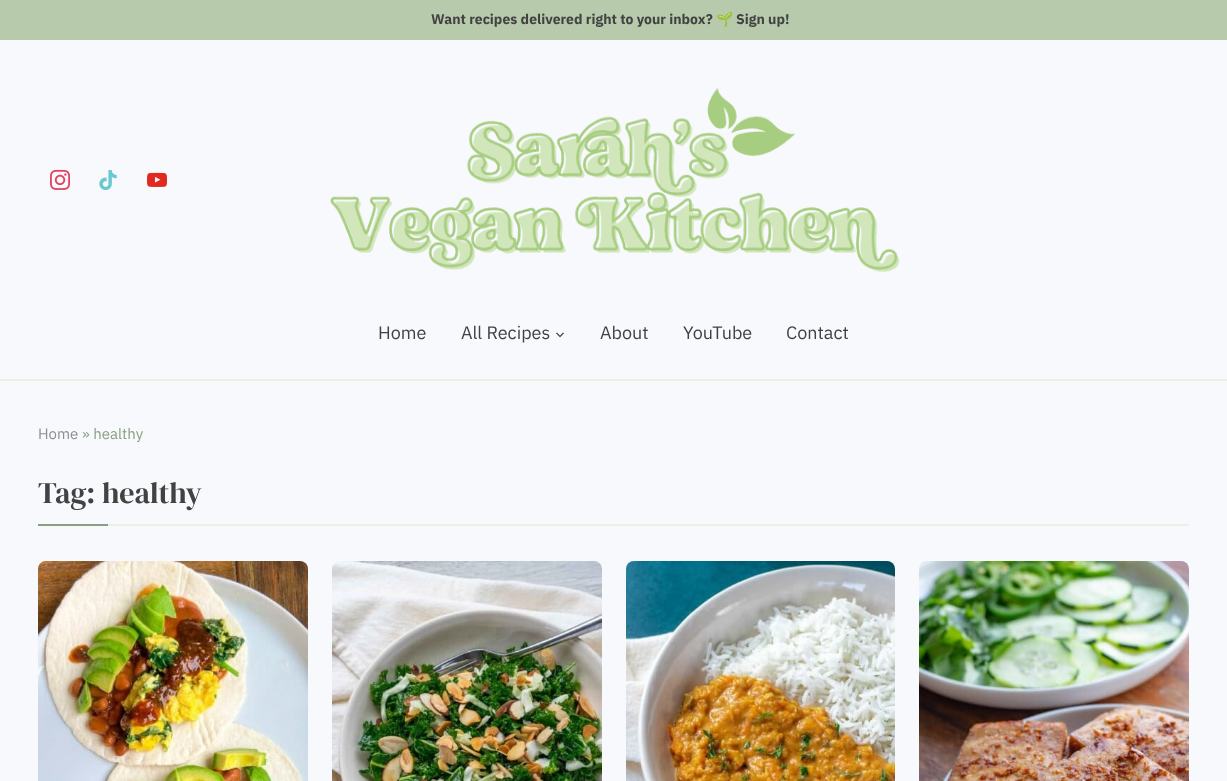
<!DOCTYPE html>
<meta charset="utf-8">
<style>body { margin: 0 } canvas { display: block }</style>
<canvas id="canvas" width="1227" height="781"></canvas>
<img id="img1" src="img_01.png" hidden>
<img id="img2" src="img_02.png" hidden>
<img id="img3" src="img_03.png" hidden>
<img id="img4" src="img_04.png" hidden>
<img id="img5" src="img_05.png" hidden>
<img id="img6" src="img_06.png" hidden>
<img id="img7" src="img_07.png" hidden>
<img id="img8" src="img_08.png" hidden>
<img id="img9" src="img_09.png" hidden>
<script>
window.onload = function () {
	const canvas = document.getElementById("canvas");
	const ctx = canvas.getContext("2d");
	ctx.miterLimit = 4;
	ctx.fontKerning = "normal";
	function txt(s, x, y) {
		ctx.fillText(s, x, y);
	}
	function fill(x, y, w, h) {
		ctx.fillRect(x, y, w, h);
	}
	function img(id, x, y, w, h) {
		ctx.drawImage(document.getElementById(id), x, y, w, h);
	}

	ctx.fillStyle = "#F8F9FC";
	fill(0, 0, 1227, 781);
	ctx.fillStyle = "#B8CAAC";
	fill(0, 0, 1227, 40);
	ctx.fillStyle = "#E9F0E8";
	fill(0, 379, 1227, 2);
	img("img1", 50, 169, 20, 21);
	img("img2", 99, 170, 18, 21);
	img("img3", 147, 172, 21, 15);
	img("img4", 330, 88, 570, 184);
	img("img5", 555, 332, 10, 6);
	fill(108, 524, 1081, 2);
	ctx.fillStyle = "#86A082";
	fill(38, 524, 70, 2);
	img("img6", 38, 561, 270, 220);
	img("img7", 332, 561, 270, 220);
	img("img8", 626, 561, 269, 220);
	img("img9", 919, 561, 270, 220);
	ctx.font = "bold 14px IBM Plex Sans";
	ctx.fillStyle = "#424242";
	txt("Want recipes delivered right to your inbox?", 431, 24);
	ctx.font = "bold 14px Noto Color Emoji";
	txt("🌱", 716, 24);
	ctx.font = "bold 14px IBM Plex Sans";
	txt("Sign up!", 736, 24);
	ctx.font = "18px IBM Plex Sans";
	txt("Home", 378, 339);
	txt("All Recipes", 461, 339);
	txt("About", 600, 339);
	txt("YouTube", 683, 339);
	txt("Contact", 786, 339);
	ctx.font = "15px IBM Plex Sans";
	ctx.fillStyle = "#8E8E8E";
	txt("Home", 38, 439);
	ctx.fillStyle = "#86A082";
	txt("» healthy", 82, 439);
	ctx.font = "30px DM Serif Display";
	ctx.fillStyle = "#424242";
	txt("Tag: healthy", 38, 503);
};
</script>
